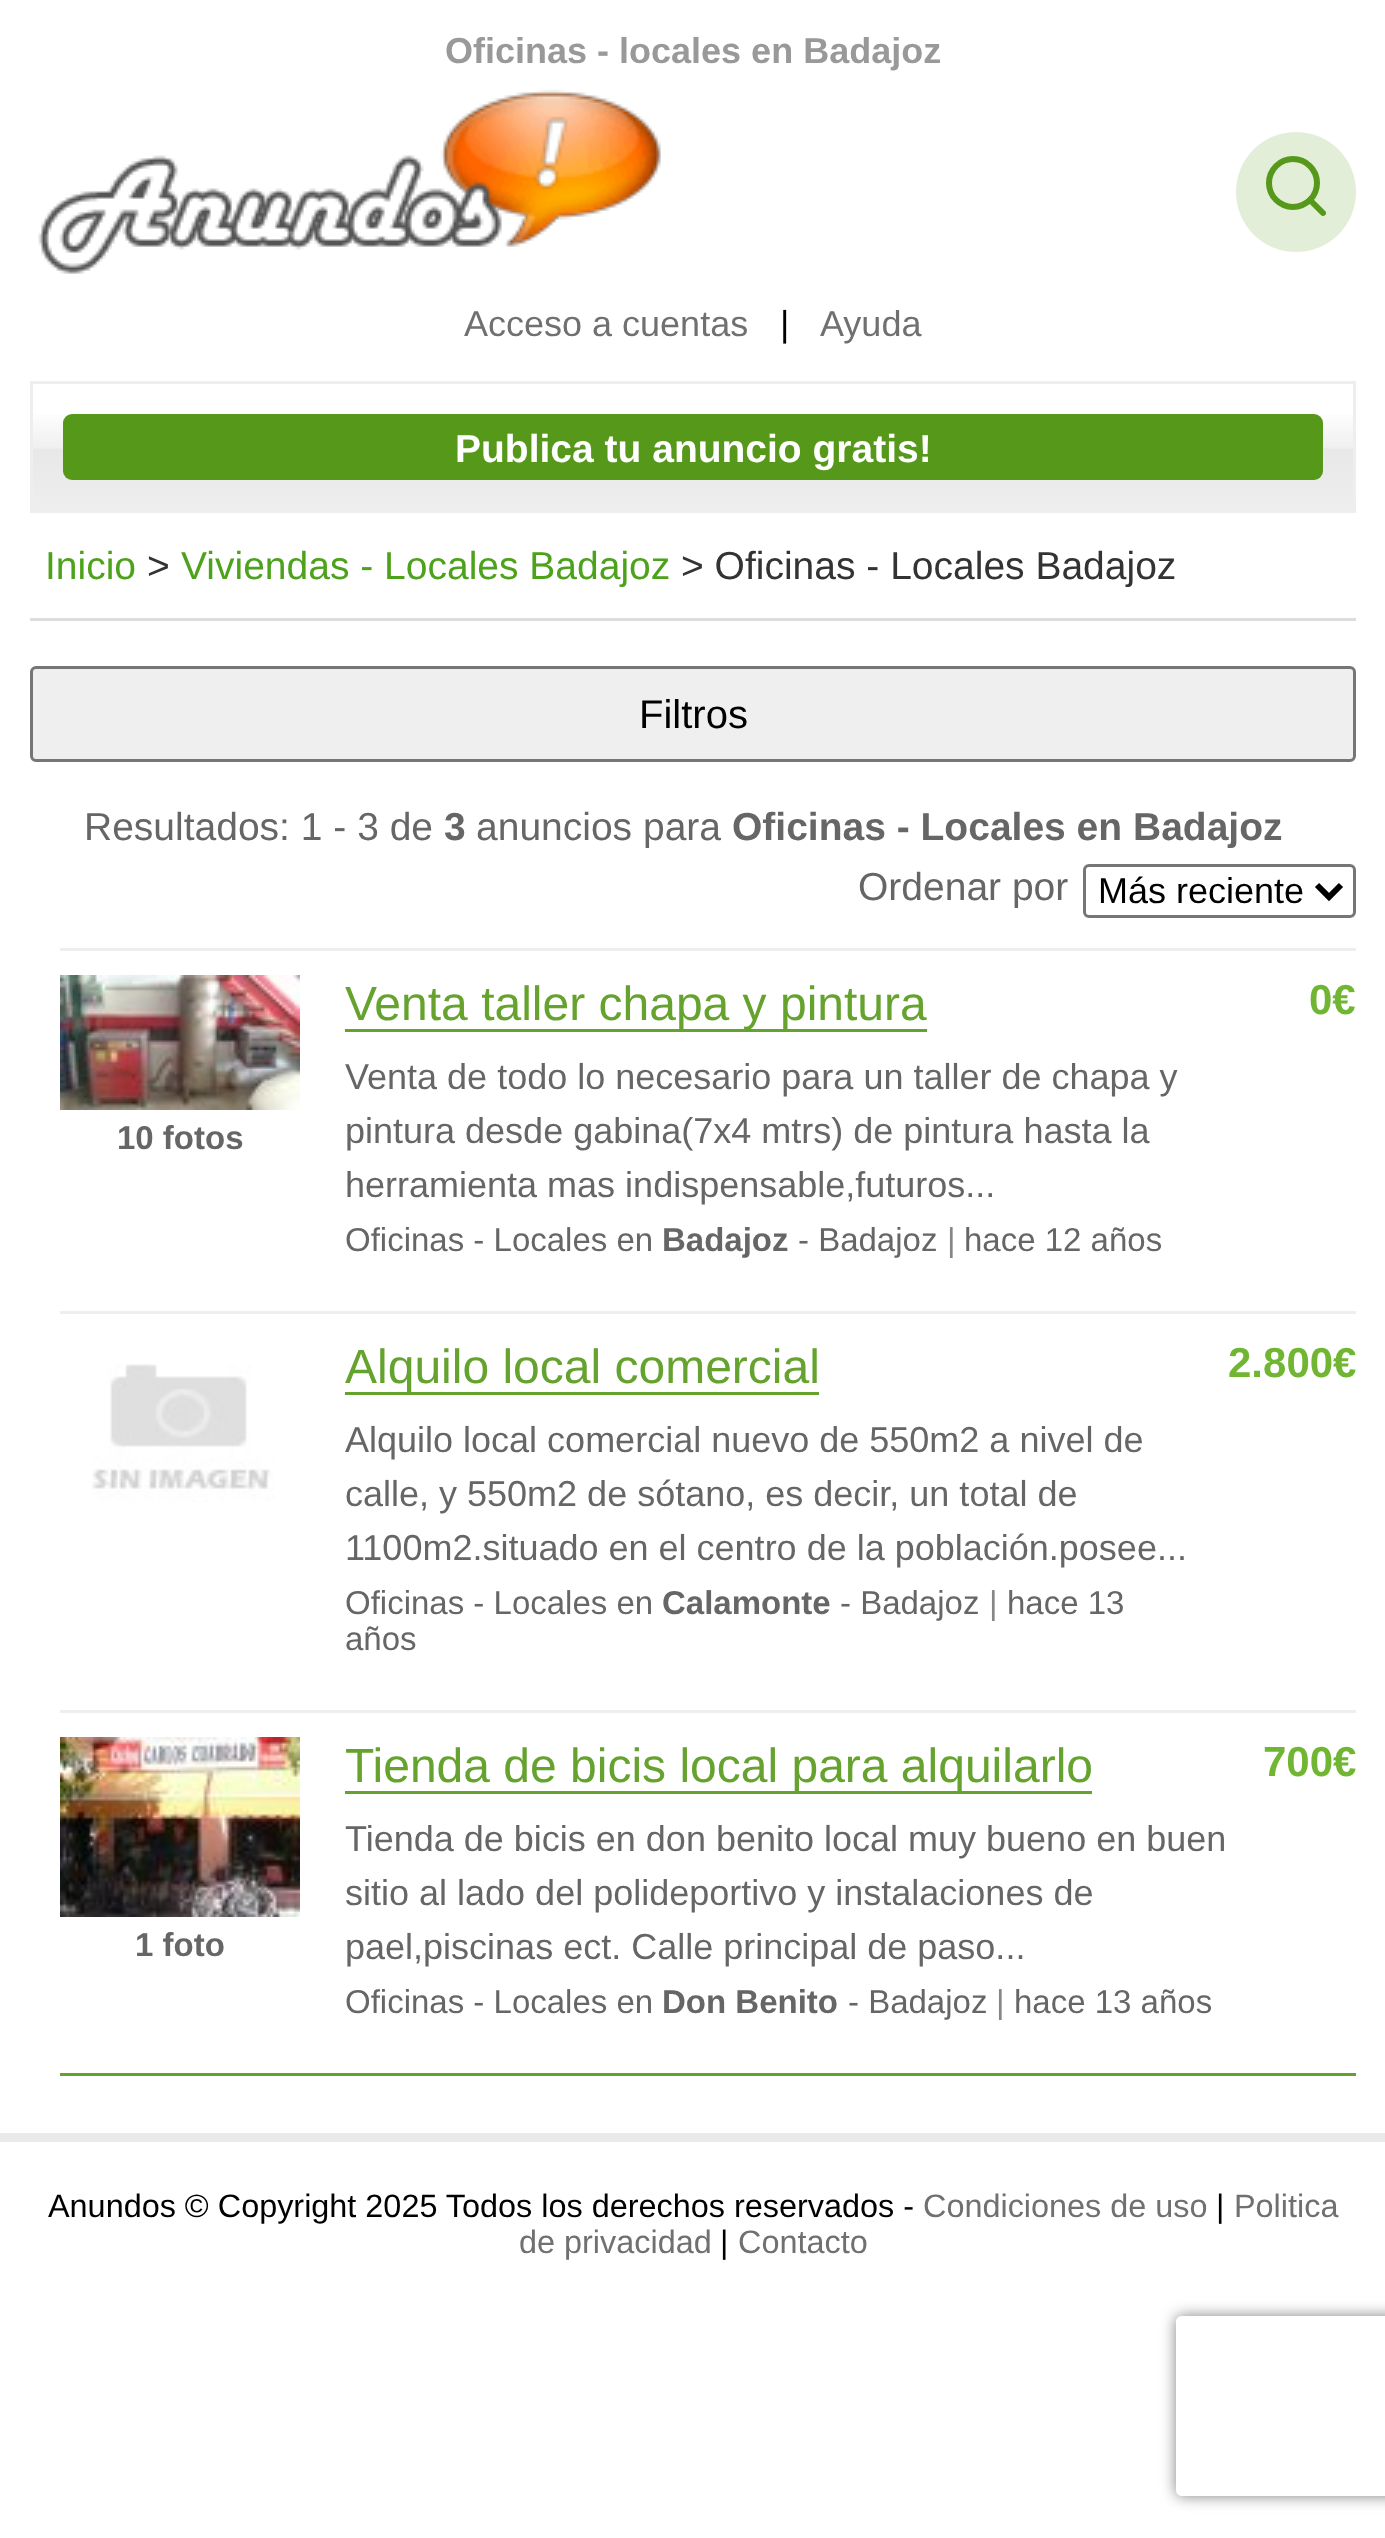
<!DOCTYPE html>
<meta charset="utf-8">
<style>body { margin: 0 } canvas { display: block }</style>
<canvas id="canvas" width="1385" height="2538"></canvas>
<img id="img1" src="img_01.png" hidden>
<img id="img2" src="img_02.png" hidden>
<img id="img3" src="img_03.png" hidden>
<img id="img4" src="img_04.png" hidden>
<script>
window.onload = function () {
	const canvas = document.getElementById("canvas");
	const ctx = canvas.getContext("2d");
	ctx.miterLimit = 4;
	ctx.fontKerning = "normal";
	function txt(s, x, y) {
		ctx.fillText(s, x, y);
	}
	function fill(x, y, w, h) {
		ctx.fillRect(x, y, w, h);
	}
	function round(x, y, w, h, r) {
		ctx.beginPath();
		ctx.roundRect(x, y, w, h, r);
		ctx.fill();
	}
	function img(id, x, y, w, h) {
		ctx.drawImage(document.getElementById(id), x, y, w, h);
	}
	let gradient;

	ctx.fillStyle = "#FFFFFF";
	fill(0, 0, 1385, 2538);
	img("img1", 38, 89, 623, 185);
	ctx.fillStyle = "#E2EED8";
	ctx.beginPath();
	ctx.arc(1296, 192, 60, 0, Math.PI * 2);
	ctx.fill();
	ctx.beginPath();
	ctx.arc(1293, 183, 24, 0, Math.PI * 2);
	ctx.strokeStyle = "#56991A";
	ctx.lineWidth = 6;
	ctx.stroke();
	ctx.beginPath();
	ctx.moveTo(1323, 213);
	ctx.lineTo(1310, 200);
	ctx.lineCap = "round";
	ctx.lineJoin = "round";
	ctx.stroke();
	gradient = ctx.createLinearGradient(693, 384, 693, 510);
	gradient.addColorStop(0.2, "#FFFFFF");
	gradient.addColorStop(0.5, "#F0F0F0");
	gradient.addColorStop(0.52, "#E8E8E8");
	gradient.addColorStop(1, "#EEEEEE");
	ctx.fillStyle = gradient;
	fill(33, 415, 1320, 95);
	ctx.strokeStyle = "#EEEEEE";
	ctx.lineWidth = 3;
	ctx.lineJoin = "miter";
	ctx.strokeRect(31.5, 382.5, 1323, 129);
	ctx.fillStyle = "#56991A";
	round(63, 414, 1260, 66, 9);
	ctx.fillStyle = "#DDDDDD";
	fill(30, 618, 1326, 3);
	ctx.fillStyle = "#EFEFEF";
	ctx.beginPath();
	ctx.roundRect(31.5, 667.5, 1323, 93, 4.5);
	ctx.fill();
	ctx.strokeStyle = "#767676";
	ctx.stroke();
	ctx.beginPath();
	ctx.roundRect(1084.5, 865.5, 270, 51, 4.5);
	ctx.stroke();
	ctx.beginPath();
	ctx.moveTo(1317, 885);
	ctx.lineTo(1329, 897);
	ctx.lineTo(1341, 885);
	ctx.strokeStyle = "#000000";
	ctx.lineWidth = 6;
	ctx.lineCap = "butt";
	ctx.stroke();
	ctx.fillStyle = "#EEEEEE";
	fill(60, 948, 1296, 3);
	img("img2", 60, 975, 240, 135);
	ctx.fillStyle = "#65A22E";
	fill(345, 1029, 582, 3);
	ctx.fillStyle = "#EEEEEE";
	fill(60, 1311, 1296, 3);
	img("img3", 92, 1364, 183, 138);
	ctx.fillStyle = "#65A22E";
	fill(345, 1392, 474, 3);
	ctx.fillStyle = "#EEEEEE";
	fill(60, 1710, 1296, 3);
	img("img4", 60, 1737, 240, 180);
	ctx.fillStyle = "#65A22E";
	fill(345, 1791, 747, 3);
	fill(60, 2073, 1296, 3);
	ctx.fillStyle = "#EAEAEA";
	fill(0, 2133, 1385, 9);
	ctx.save();
	ctx.beginPath();
	ctx.moveTo(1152, 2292);
	ctx.lineTo(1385, 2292);
	ctx.lineTo(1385, 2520);
	ctx.lineTo(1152, 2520);
	ctx.closePath();
	ctx.moveTo(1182, 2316);
	ctx.lineTo(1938, 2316);
	ctx.bezierCurveTo(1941.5, 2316, 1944, 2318.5, 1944, 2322);
	ctx.lineTo(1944, 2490);
	ctx.bezierCurveTo(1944, 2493.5, 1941.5, 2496, 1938, 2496);
	ctx.lineTo(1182, 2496);
	ctx.bezierCurveTo(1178.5, 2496, 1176, 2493.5, 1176, 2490);
	ctx.lineTo(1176, 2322);
	ctx.bezierCurveTo(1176, 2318.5, 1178.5, 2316, 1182, 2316);
	ctx.closePath();
	ctx.clip("evenodd");
	ctx.fillStyle = "#808080";
	ctx.filter = "blur(7.5px)";
	ctx.beginPath();
	ctx.roundRect(1176, 2316, 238, 180, 6);
	ctx.fill();
	ctx.filter = "none";
	ctx.restore();
	ctx.font = "bold 36px Liberation Sans";
	ctx.fillStyle = "#999999";
	txt("Oficinas - locales en Badajoz", 445, 63);
	ctx.font = "36px Liberation Sans";
	ctx.fillStyle = "#707070";
	txt("Acceso a cuentas", 464, 336);
	ctx.fillStyle = "#000000";
	txt("|", 780, 336);
	ctx.fillStyle = "#707070";
	txt("Ayuda", 820, 336);
	ctx.font = "bold 39px Liberation Sans";
	ctx.fillStyle = "#FFFFFF";
	txt("Publica tu anuncio gratis!", 455, 462);
	ctx.font = "39px Liberation Sans";
	ctx.fillStyle = "#4DA21B";
	txt("Inicio", 45, 579);
	ctx.fillStyle = "#333333";
	txt(">", 147, 579);
	ctx.fillStyle = "#4DA21B";
	txt("Viviendas - Locales Badajoz", 181, 579);
	ctx.fillStyle = "#333333";
	txt("> Oficinas - Locales Badajoz", 681, 579);
	ctx.font = "40px Liberation Sans";
	ctx.fillStyle = "#000000";
	txt("Filtros", 639, 728);
	ctx.font = "39px Liberation Sans";
	ctx.fillStyle = "#666666";
	txt("Resultados: 1 - 3 de", 84, 840);
	ctx.font = "bold 39px Liberation Sans";
	txt("3", 444, 840);
	ctx.font = "39px Liberation Sans";
	txt("anuncios para", 476, 840);
	ctx.font = "bold 39px Liberation Sans";
	txt("Oficinas - Locales en Badajoz", 732, 840);
	ctx.font = "39px Liberation Sans";
	txt("Ordenar por", 858, 900);
	ctx.font = "36px Liberation Sans";
	ctx.fillStyle = "#000000";
	txt("Más reciente", 1098, 903);
	ctx.font = "bold 33px Liberation Sans";
	ctx.fillStyle = "#666666";
	txt("10 fotos", 117, 1149);
	ctx.font = "48px Liberation Sans";
	ctx.fillStyle = "#65A22E";
	txt("Venta taller chapa y pintura", 345, 1020);
	ctx.font = "36px Liberation Sans";
	ctx.fillStyle = "#666666";
	txt("Venta de todo lo necesario para un taller de chapa y", 345, 1089);
	txt("pintura desde gabina(7x4 mtrs) de pintura hasta la", 345, 1143);
	txt("herramienta mas indispensable,futuros...", 345, 1197);
	ctx.font = "33px Liberation Sans";
	txt("Oficinas - Locales en", 345, 1251);
	ctx.font = "bold 33px Liberation Sans";
	txt("Badajoz", 662, 1251);
	ctx.font = "33px Liberation Sans";
	txt("- Badajoz", 798, 1251);
	ctx.fillStyle = "#868686";
	txt("|", 947, 1251);
	ctx.fillStyle = "#666666";
	txt("hace 12 años", 964, 1251);
	ctx.font = "bold 42px Liberation Sans";
	ctx.fillStyle = "#71B633";
	txt("0€", 1309, 1014);
	ctx.font = "48px Liberation Sans";
	ctx.fillStyle = "#65A22E";
	txt("Alquilo local comercial", 345, 1383);
	ctx.font = "36px Liberation Sans";
	ctx.fillStyle = "#666666";
	txt("Alquilo local comercial nuevo de 550m2 a nivel de", 345, 1452);
	txt("calle, y 550m2 de sótano, es decir, un total de", 345, 1506);
	txt("1100m2.situado en el centro de la población.posee...", 345, 1560);
	ctx.font = "33px Liberation Sans";
	txt("Oficinas - Locales en", 345, 1614);
	ctx.font = "bold 33px Liberation Sans";
	txt("Calamonte", 662, 1614);
	ctx.font = "33px Liberation Sans";
	txt("- Badajoz", 840, 1614);
	ctx.fillStyle = "#868686";
	txt("|", 989, 1614);
	ctx.fillStyle = "#666666";
	txt("hace 13", 1007, 1614);
	txt("años", 345, 1650);
	ctx.font = "bold 42px Liberation Sans";
	ctx.fillStyle = "#71B633";
	txt("2.800€", 1228, 1377);
	ctx.font = "bold 33px Liberation Sans";
	ctx.fillStyle = "#666666";
	txt("1 foto", 135, 1956);
	ctx.font = "48px Liberation Sans";
	ctx.fillStyle = "#65A22E";
	txt("Tienda de bicis local para alquilarlo", 345, 1782);
	ctx.font = "36px Liberation Sans";
	ctx.fillStyle = "#666666";
	txt("Tienda de bicis en don benito local muy bueno en buen", 345, 1851);
	txt("sitio al lado del polideportivo y instalaciones de", 345, 1905);
	txt("pael,piscinas ect. Calle principal de paso...", 345, 1959);
	ctx.font = "33px Liberation Sans";
	txt("Oficinas - Locales en", 345, 2013);
	ctx.font = "bold 33px Liberation Sans";
	txt("Don Benito", 662, 2013);
	ctx.font = "33px Liberation Sans";
	txt("- Badajoz", 848, 2013);
	ctx.fillStyle = "#868686";
	txt("|", 996, 2013);
	ctx.fillStyle = "#666666";
	txt("hace 13 años", 1014, 2013);
	ctx.font = "bold 42px Liberation Sans";
	ctx.fillStyle = "#71B633";
	txt("700€", 1263, 1776);
	ctx.font = "32.4px Liberation Sans";
	ctx.fillStyle = "#000000";
	txt("Anundos © Copyright 2025 Todos los derechos reservados -", 48, 2217);
	ctx.fillStyle = "#707070";
	txt("Condiciones de uso", 923, 2217);
	ctx.fillStyle = "#000000";
	txt("|", 1216, 2217);
	ctx.fillStyle = "#707070";
	txt("Politica", 1234, 2217);
	txt("de privacidad", 519, 2253);
	ctx.fillStyle = "#000000";
	txt("|", 720, 2253);
	ctx.fillStyle = "#707070";
	txt("Contacto", 738, 2253);
};
</script>
